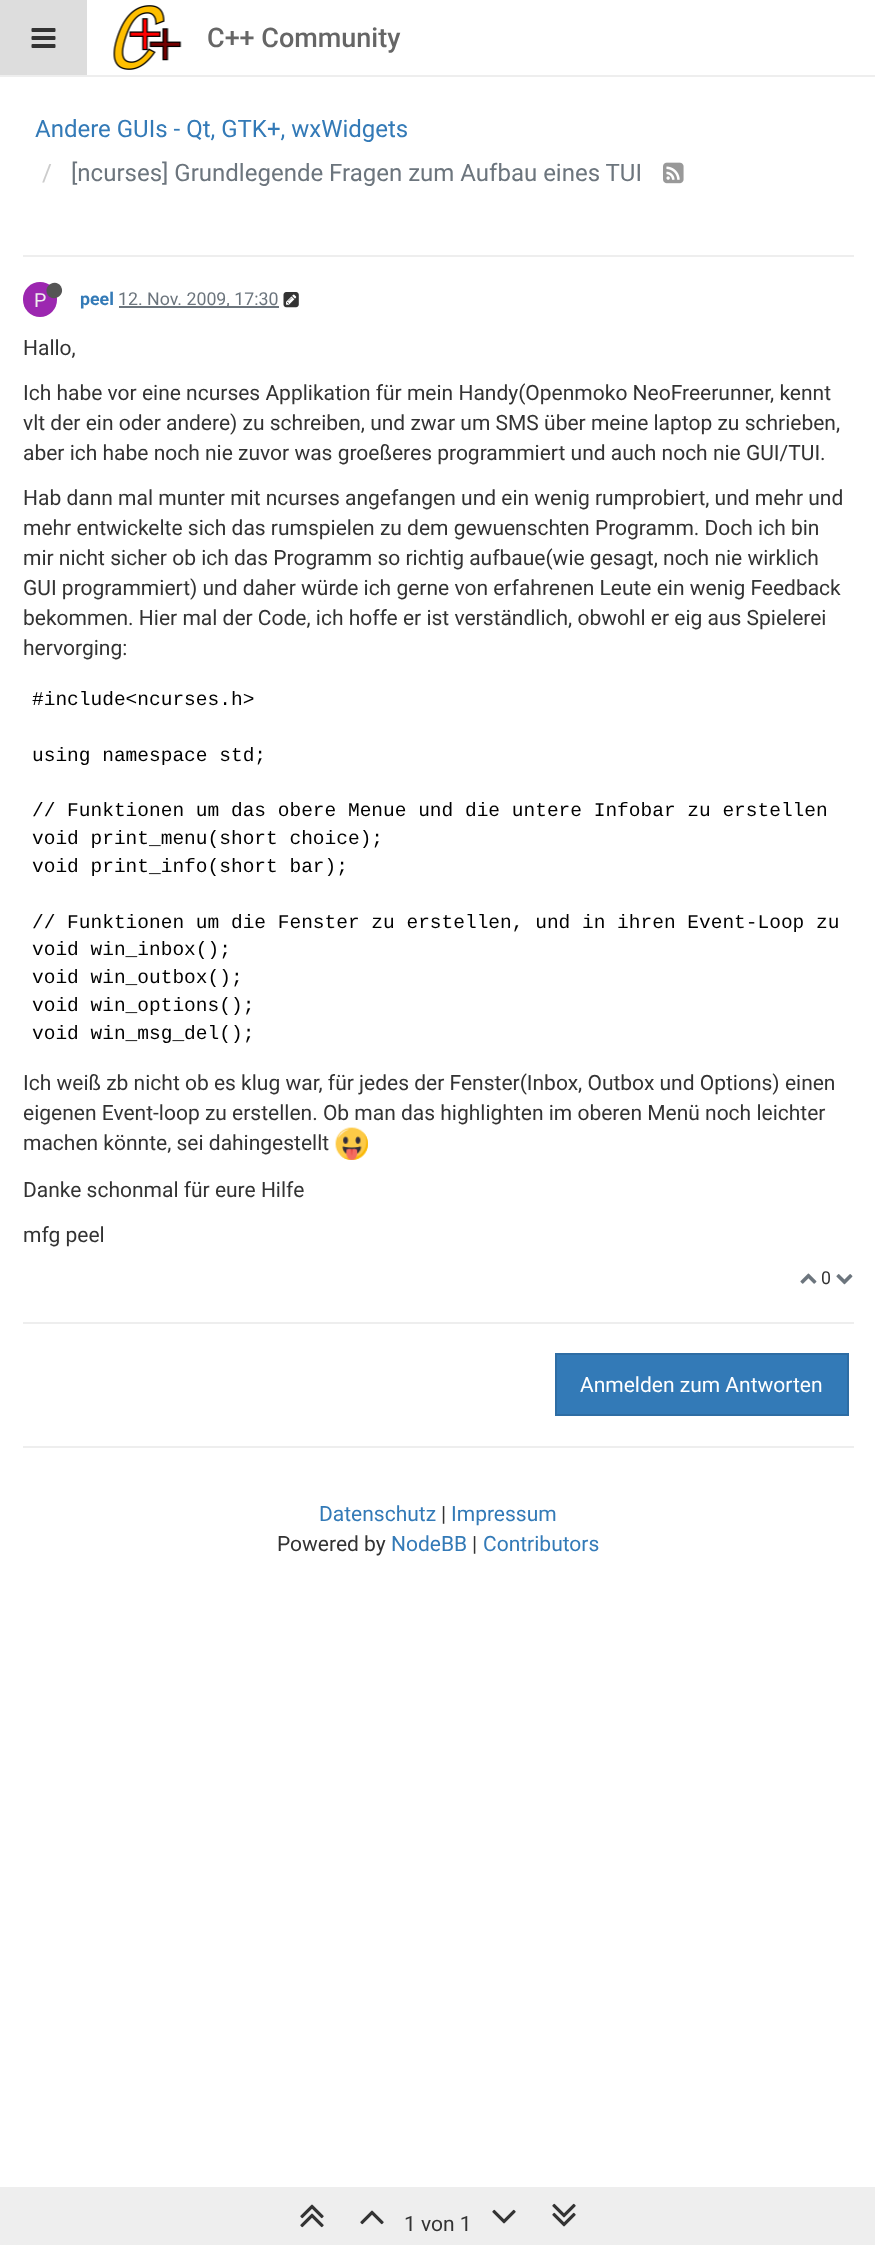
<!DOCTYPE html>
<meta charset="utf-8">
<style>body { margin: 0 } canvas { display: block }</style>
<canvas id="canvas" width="875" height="2245"></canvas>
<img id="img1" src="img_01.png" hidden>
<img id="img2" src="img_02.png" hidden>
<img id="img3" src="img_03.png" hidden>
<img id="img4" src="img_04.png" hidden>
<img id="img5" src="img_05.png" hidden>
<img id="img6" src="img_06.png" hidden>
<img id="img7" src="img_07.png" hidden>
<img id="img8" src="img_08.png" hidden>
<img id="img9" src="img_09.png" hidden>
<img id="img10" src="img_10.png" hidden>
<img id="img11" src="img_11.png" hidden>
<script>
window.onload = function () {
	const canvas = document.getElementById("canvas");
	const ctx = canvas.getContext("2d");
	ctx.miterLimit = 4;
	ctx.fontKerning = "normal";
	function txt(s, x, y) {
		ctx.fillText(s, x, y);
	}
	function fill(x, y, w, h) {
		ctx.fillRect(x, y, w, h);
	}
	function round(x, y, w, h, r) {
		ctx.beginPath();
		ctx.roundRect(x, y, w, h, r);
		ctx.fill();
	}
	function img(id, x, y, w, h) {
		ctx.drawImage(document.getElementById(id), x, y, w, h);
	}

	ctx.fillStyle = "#FFFFFF";
	fill(0, 0, 875, 2245);
	ctx.fillStyle = "#EEEEEE";
	fill(0, 75, 875, 2);
	ctx.fillStyle = "#DDDDDD";
	fill(0, 0, 87, 75);
	img("img1", 31, 28, 25, 20);
	img("img2", 113, 5, 69, 65);
	img("img3", 663, 162, 21, 22);
	ctx.fillStyle = "#EEEEEE";
	fill(23, 255, 831, 2);
	ctx.fillStyle = "#9C27B0";
	round(23, 282, 34, 35, 17);
	ctx.fillStyle = "#555555";
	ctx.beginPath();
	ctx.moveTo(61, 286.5);
	ctx.bezierCurveTo(66, 295.5, 52.5, 303, 47.5, 294.5);
	ctx.bezierCurveTo(42.5, 285.5, 56, 278, 61, 286.5);
	ctx.closePath();
	ctx.fill();
	ctx.fillStyle = "#6C757D";
	fill(119, 306, 160, 2);
	img("img4", 283, 292, 16, 16);
	img("img5", 335, 1127, 33, 33);
	img("img6", 800, 1273, 17, 11);
	img("img7", 836, 1274, 17, 11);
	ctx.fillStyle = "#EEEEEE";
	fill(23, 1322, 831, 2);
	ctx.fillStyle = "#337AB7";
	ctx.beginPath();
	ctx.rect(556, 1354, 292, 61);
	ctx.fill();
	ctx.strokeStyle = "#2E6DA4";
	ctx.lineWidth = 2;
	ctx.stroke();
	ctx.fillStyle = "#EEEEEE";
	fill(23, 1446, 831, 2);
	fill(0, 2187, 875, 58);
	img("img8", 300, 2204, 24, 24);
	img("img9", 360, 2210, 24, 15);
	img("img10", 492, 2209, 24, 15);
	img("img11", 552, 2203, 24, 24);
	ctx.font = "500 27px Roboto";
	ctx.fillStyle = "#666666";
	txt("C++ Community", 207, 47);
	ctx.font = "24px Roboto";
	ctx.fillStyle = "#337AB7";
	txt("Andere GUIs - Qt, GTK+, wxWidgets", 35, 137);
	ctx.fillStyle = "#CCCCCC";
	txt("/", 42, 181);
	ctx.fillStyle = "#6C757D";
	txt("[ncurses] Grundlegende Fragen zum Aufbau eines TUI", 71, 181);
	ctx.font = "19.5px Roboto";
	ctx.fillStyle = "#EEEEEE";
	txt("P", 34, 307);
	ctx.font = "bold 17.75px Roboto";
	ctx.fillStyle = "#337AB7";
	txt("peel", 80, 305);
	ctx.font = "17.75px Roboto";
	ctx.fillStyle = "#6C757D";
	txt("12. Nov. 2009, 17:30", 118, 305);
	ctx.font = "21px Roboto";
	ctx.fillStyle = "#333333";
	txt("Hallo,", 23, 355);
	txt("Ich habe vor eine ncurses Applikation für mein Handy(Openmoko NeoFreerunner, kennt", 23, 400);
	txt("vlt der ein oder andere) zu schreiben, und zwar um SMS über meine laptop zu schrieben,", 23, 430);
	txt("aber ich habe noch nie zuvor was groeßeres programmiert und auch noch nie GUI/TUI.", 23, 460);
	txt("Hab dann mal munter mit ncurses angefangen und ein wenig rumprobiert, und mehr und", 23, 505);
	txt("mehr entwickelte sich das rumspielen zu dem gewuenschten Programm. Doch ich bin", 23, 535);
	txt("mir nicht sicher ob ich das Programm so richtig aufbaue(wie gesagt, noch nie wirklich", 23, 565);
	txt("GUI programmiert) und daher würde ich gerne von erfahrenen Leute ein wenig Feedback", 23, 595);
	txt("bekommen. Hier mal der Code, ich hoffe er ist verständlich, obwohl er eig aus Spielerei", 23, 625);
	txt("hervorging:", 23, 655);
	ctx.font = "19.5px Liberation Mono";
	ctx.fillStyle = "#000000";
	txt("#include<ncurses.h>", 32, 705);
	txt("using namespace std;", 32, 761);
	txt("// Funktionen um das obere Menue und die untere Infobar zu erstellen", 32, 816);
	txt("void print_menu(short choice);", 32, 844);
	txt("void print_info(short bar);", 32, 872);
	txt("// Funktionen um die Fenster zu erstellen, und in ihren Event-Loop zu", 32, 928);
	txt("void win_inbox();", 32, 955);
	txt("void win_outbox();", 32, 983);
	txt("void win_options();", 32, 1011);
	txt("void win_msg_del();", 32, 1039);
	ctx.font = "21px Roboto";
	ctx.fillStyle = "#333333";
	txt("Ich weiß zb nicht ob es klug war, für jedes der Fenster(Inbox, Outbox und Options) einen", 23, 1090);
	txt("eigenen Event-loop zu erstellen. Ob man das highlighten im oberen Menü noch leichter", 23, 1120);
	txt("machen könnte, sei dahingestellt", 23, 1150);
	txt("Danke schonmal für eure Hilfe", 23, 1197);
	txt("mfg peel", 23, 1242);
	ctx.font = "17.75px Roboto";
	txt("0", 821, 1284);
	ctx.font = "21px Roboto";
	ctx.fillStyle = "#FFFFFF";
	txt("Anmelden zum Antworten", 580, 1392);
	ctx.fillStyle = "#333333";
	txt("1 von 1", 404, 2231);
	ctx.fillStyle = "#337AB7";
	txt("Datenschutz", 319, 1521);
	ctx.fillStyle = "#333333";
	txt("|", 441, 1521);
	ctx.fillStyle = "#337AB7";
	txt("Impressum", 451, 1521);
	ctx.fillStyle = "#333333";
	txt("Powered by", 277, 1551);
	ctx.fillStyle = "#337AB7";
	txt("NodeBB", 391, 1551);
	ctx.fillStyle = "#333333";
	txt("|", 472, 1551);
	ctx.fillStyle = "#337AB7";
	txt("Contributors", 483, 1551);
};
</script>
